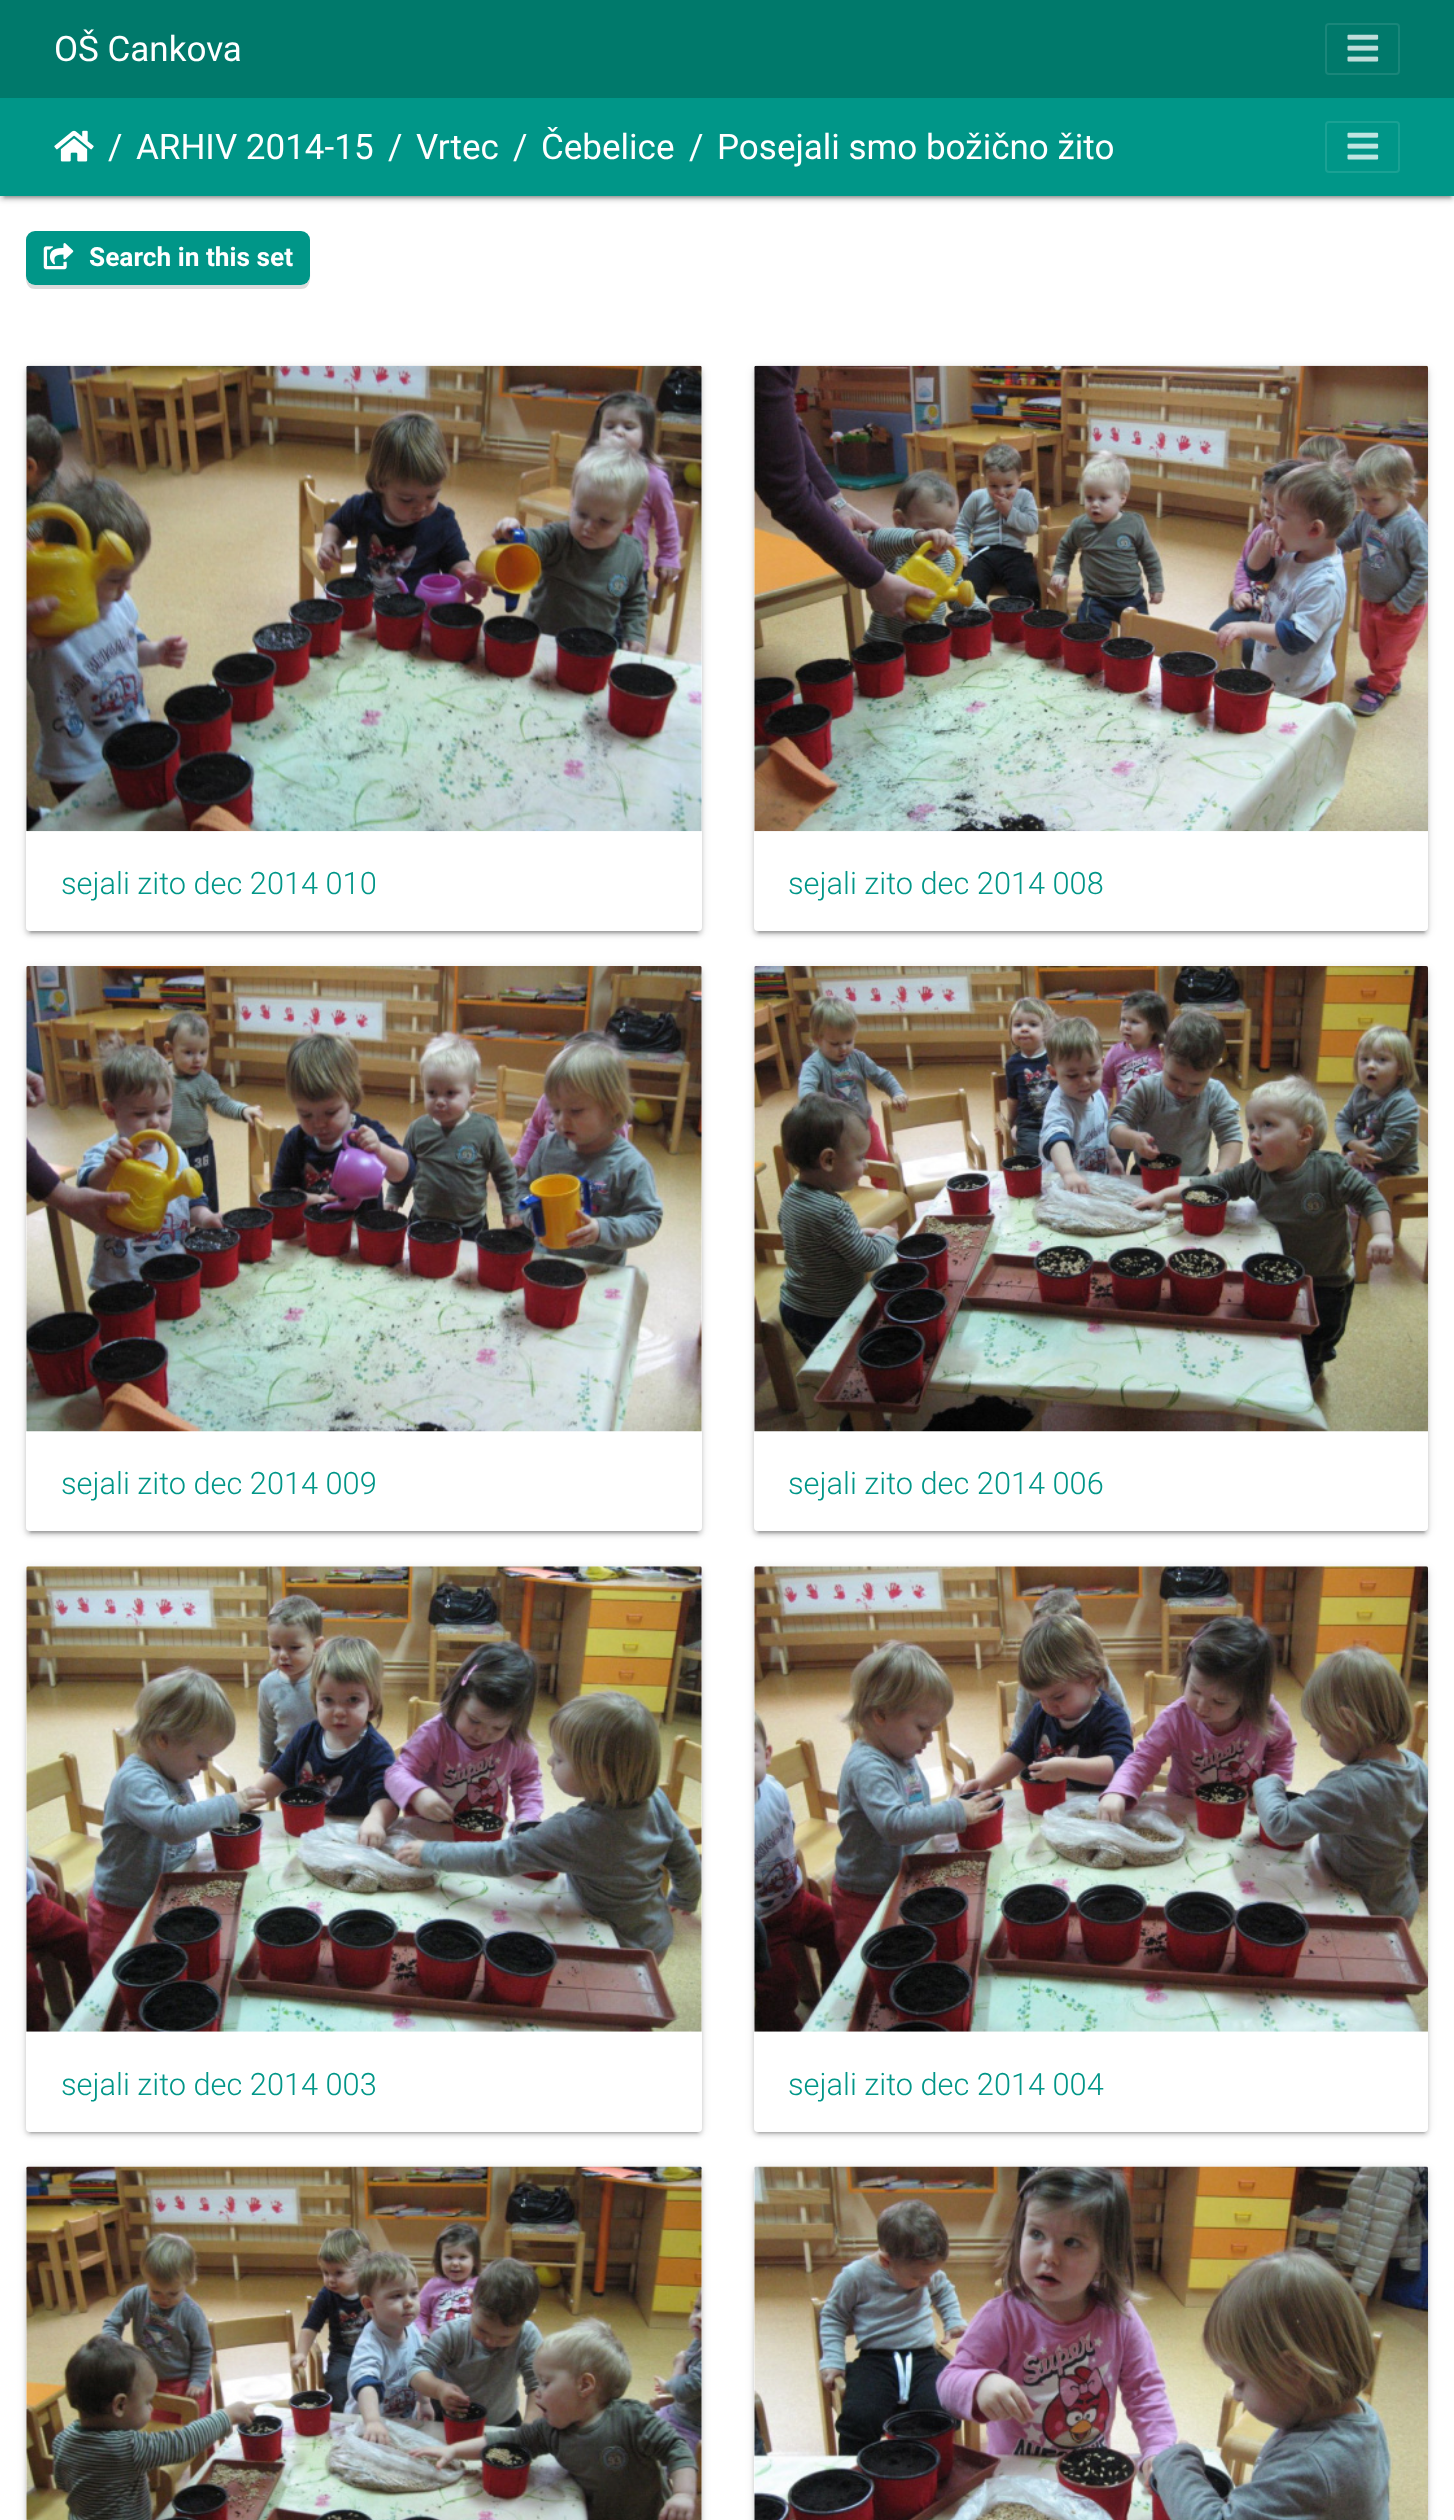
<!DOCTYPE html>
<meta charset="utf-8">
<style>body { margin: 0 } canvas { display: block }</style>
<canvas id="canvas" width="1454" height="2520"></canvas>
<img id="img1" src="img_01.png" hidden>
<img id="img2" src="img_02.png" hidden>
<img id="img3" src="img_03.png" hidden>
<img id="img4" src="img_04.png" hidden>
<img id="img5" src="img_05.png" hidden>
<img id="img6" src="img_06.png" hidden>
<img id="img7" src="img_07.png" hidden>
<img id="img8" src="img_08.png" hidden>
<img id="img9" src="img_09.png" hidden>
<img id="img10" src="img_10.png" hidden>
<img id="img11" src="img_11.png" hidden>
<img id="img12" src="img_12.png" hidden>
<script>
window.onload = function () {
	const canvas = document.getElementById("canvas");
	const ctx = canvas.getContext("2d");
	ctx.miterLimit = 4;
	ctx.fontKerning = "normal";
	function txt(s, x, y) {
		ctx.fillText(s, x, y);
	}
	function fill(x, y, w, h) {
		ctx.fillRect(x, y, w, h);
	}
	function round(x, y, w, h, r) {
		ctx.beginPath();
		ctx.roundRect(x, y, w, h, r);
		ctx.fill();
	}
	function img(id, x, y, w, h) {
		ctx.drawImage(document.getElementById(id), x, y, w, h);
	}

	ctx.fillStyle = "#FFFFFF";
	fill(0, 0, 1454, 2520);
	ctx.fillStyle = "rgba(0, 0, 0, 0.12)";
	ctx.filter = "blur(4.5px)";
	ctx.beginPath();
	ctx.rect(0, 100, 1454, 98);
	ctx.fill();
	ctx.filter = "none";
	ctx.fillStyle = "rgba(0, 0, 0, 0.14)";
	ctx.filter = "blur(2px)";
	ctx.beginPath();
	ctx.rect(0, 102, 1454, 98);
	ctx.fill();
	ctx.filter = "none";
	ctx.fillStyle = "#00796B";
	fill(0, 0, 1454, 98);
	ctx.beginPath();
	ctx.roundRect(1326, 24, 73, 50, 3);
	ctx.strokeStyle = "#1A867A";
	ctx.lineWidth = 2;
	ctx.stroke();
	img("img1", 1347, 34, 32, 28);
	ctx.fillStyle = "rgba(0, 0, 0, 0.2)";
	ctx.filter = "blur(1px)";
	ctx.beginPath();
	ctx.rect(4, 107, 1447, 91);
	ctx.fill();
	ctx.filter = "none";
	ctx.fillStyle = "#009688";
	fill(0, 98, 1454, 98);
	img("img2", 54, 130, 40, 32);
	ctx.beginPath();
	ctx.roundRect(1326, 122, 73, 50, 3);
	ctx.strokeStyle = "#1AA194";
	ctx.stroke();
	img("img3", 1347, 132, 32, 28);
	ctx.fillStyle = "#DBDBDB";
	ctx.beginPath();
	ctx.moveTo(26, 242);
	ctx.lineTo(26, 268);
	ctx.bezierCurveTo(26, 275, 24, 289, 35, 289);
	ctx.lineTo(301, 289);
	ctx.bezierCurveTo(312, 289, 310, 275, 310, 268);
	ctx.lineTo(310, 242);
	ctx.lineTo(310, 276);
	ctx.bezierCurveTo(310, 281, 306, 285, 301, 285);
	ctx.lineTo(35, 285);
	ctx.bezierCurveTo(30, 285, 26, 281, 26, 276);
	ctx.closePath();
	ctx.fill();
	ctx.fillStyle = "#009688";
	round(26, 231, 284, 54, 9);
	img("img4", 43, 243, 31, 27);
	ctx.fillStyle = "rgba(0, 0, 0, 0.12)";
	ctx.filter = "blur(4.5px)";
	ctx.beginPath();
	ctx.roundRect(26, 368, 676, 565, 4);
	ctx.fill();
	ctx.filter = "none";
	ctx.fillStyle = "rgba(0, 0, 0, 0.2)";
	ctx.filter = "blur(1px)";
	ctx.beginPath();
	ctx.rect(30, 375, 668, 558);
	ctx.fill();
	ctx.filter = "none";
	ctx.fillStyle = "rgba(0, 0, 0, 0.14)";
	ctx.filter = "blur(2px)";
	ctx.beginPath();
	ctx.roundRect(26, 369, 676, 566, 4);
	ctx.fill();
	ctx.filter = "none";
	ctx.fillStyle = "#FFFFFF";
	round(26, 366, 676, 565, 4);
	img("img5", 26, 365, 676, 467);
	ctx.fillStyle = "rgba(0, 0, 0, 0.12)";
	ctx.filter = "blur(4.5px)";
	ctx.beginPath();
	ctx.roundRect(754, 368, 674, 565, 4);
	ctx.fill();
	ctx.filter = "none";
	ctx.fillStyle = "rgba(0, 0, 0, 0.2)";
	ctx.filter = "blur(1px)";
	ctx.beginPath();
	ctx.rect(758, 375, 667, 558);
	ctx.fill();
	ctx.filter = "none";
	ctx.fillStyle = "rgba(0, 0, 0, 0.14)";
	ctx.filter = "blur(2px)";
	ctx.beginPath();
	ctx.roundRect(754, 369, 674, 566, 4);
	ctx.fill();
	ctx.filter = "none";
	ctx.fillStyle = "#FFFFFF";
	round(754, 366, 674, 565, 4);
	img("img6", 754, 365, 674, 467);
	ctx.fillStyle = "rgba(0, 0, 0, 0.12)";
	ctx.filter = "blur(4.5px)";
	ctx.beginPath();
	ctx.roundRect(26, 968, 676, 565, 4);
	ctx.fill();
	ctx.filter = "none";
	ctx.fillStyle = "rgba(0, 0, 0, 0.2)";
	ctx.filter = "blur(1px)";
	ctx.beginPath();
	ctx.rect(30, 975, 668, 558);
	ctx.fill();
	ctx.filter = "none";
	ctx.fillStyle = "rgba(0, 0, 0, 0.14)";
	ctx.filter = "blur(2px)";
	ctx.beginPath();
	ctx.roundRect(26, 970, 676, 565, 4);
	ctx.fill();
	ctx.filter = "none";
	ctx.fillStyle = "#FFFFFF";
	round(26, 966, 676, 565, 4);
	img("img7", 26, 966, 676, 466);
	ctx.fillStyle = "rgba(0, 0, 0, 0.12)";
	ctx.filter = "blur(4.5px)";
	ctx.beginPath();
	ctx.roundRect(754, 968, 674, 565, 4);
	ctx.fill();
	ctx.filter = "none";
	ctx.fillStyle = "rgba(0, 0, 0, 0.2)";
	ctx.filter = "blur(1px)";
	ctx.beginPath();
	ctx.rect(758, 975, 667, 558);
	ctx.fill();
	ctx.filter = "none";
	ctx.fillStyle = "rgba(0, 0, 0, 0.14)";
	ctx.filter = "blur(2px)";
	ctx.beginPath();
	ctx.roundRect(754, 970, 674, 565, 4);
	ctx.fill();
	ctx.filter = "none";
	ctx.fillStyle = "#FFFFFF";
	round(754, 966, 674, 565, 4);
	img("img8", 754, 966, 674, 466);
	ctx.fillStyle = "rgba(0, 0, 0, 0.12)";
	ctx.filter = "blur(4.5px)";
	ctx.beginPath();
	ctx.roundRect(26, 1568, 676, 565, 4);
	ctx.fill();
	ctx.filter = "none";
	ctx.fillStyle = "rgba(0, 0, 0, 0.2)";
	ctx.filter = "blur(1px)";
	ctx.beginPath();
	ctx.rect(30, 1575, 668, 558);
	ctx.fill();
	ctx.filter = "none";
	ctx.fillStyle = "rgba(0, 0, 0, 0.14)";
	ctx.filter = "blur(2px)";
	ctx.beginPath();
	ctx.roundRect(26, 1570, 676, 565, 4);
	ctx.fill();
	ctx.filter = "none";
	ctx.fillStyle = "#FFFFFF";
	round(26, 1566, 676, 566, 4);
	img("img9", 26, 1566, 676, 466);
	ctx.fillStyle = "rgba(0, 0, 0, 0.12)";
	ctx.filter = "blur(4.5px)";
	ctx.beginPath();
	ctx.roundRect(754, 1568, 674, 565, 4);
	ctx.fill();
	ctx.filter = "none";
	ctx.fillStyle = "rgba(0, 0, 0, 0.2)";
	ctx.filter = "blur(1px)";
	ctx.beginPath();
	ctx.rect(758, 1575, 667, 558);
	ctx.fill();
	ctx.filter = "none";
	ctx.fillStyle = "rgba(0, 0, 0, 0.14)";
	ctx.filter = "blur(2px)";
	ctx.beginPath();
	ctx.roundRect(754, 1570, 674, 565, 4);
	ctx.fill();
	ctx.filter = "none";
	ctx.fillStyle = "#FFFFFF";
	round(754, 1566, 674, 566, 4);
	img("img10", 754, 1566, 674, 466);
	ctx.fillStyle = "rgba(0, 0, 0, 0.12)";
	ctx.filter = "blur(4.5px)";
	ctx.beginPath();
	ctx.roundRect(26, 2168, 676, 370, 4);
	ctx.fill();
	ctx.filter = "none";
	ctx.fillStyle = "rgba(0, 0, 0, 0.14)";
	ctx.filter = "blur(2px)";
	ctx.beginPath();
	ctx.roundRect(26, 2170, 676, 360, 4);
	ctx.fill();
	ctx.filter = "none";
	ctx.fillStyle = "#FFFFFF";
	round(26, 2167, 676, 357, 4);
	img("img11", 26, 2166, 676, 354);
	ctx.fillStyle = "rgba(0, 0, 0, 0.12)";
	ctx.filter = "blur(4.5px)";
	ctx.beginPath();
	ctx.roundRect(754, 2168, 674, 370, 4);
	ctx.fill();
	ctx.filter = "none";
	ctx.fillStyle = "rgba(0, 0, 0, 0.14)";
	ctx.filter = "blur(2px)";
	ctx.beginPath();
	ctx.roundRect(754, 2170, 674, 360, 4);
	ctx.fill();
	ctx.filter = "none";
	ctx.fillStyle = "#FFFFFF";
	round(754, 2167, 674, 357, 4);
	img("img12", 754, 2166, 674, 354);
	ctx.font = "35px Roboto";
	txt("OŠ Cankova", 54, 61);
	txt("/", 108, 159);
	txt("ARHIV 2014-15", 136, 159);
	txt("/", 388, 159);
	txt("Vrtec", 416, 159);
	txt("/", 513, 159);
	txt("Čebelice", 541, 159);
	txt("/", 689, 159);
	txt("Posejali smo božično žito", 717, 159);
	ctx.font = "bold 26.25px Roboto";
	txt("Search in this set", 89, 266);
	ctx.font = "300 30.75px Roboto";
	ctx.fillStyle = "#009688";
	txt("sejali zito dec 2014 010", 61, 894);
	txt("sejali zito dec 2014 008", 788, 894);
	txt("sejali zito dec 2014 009", 61, 1494);
	txt("sejali zito dec 2014 006", 788, 1494);
	txt("sejali zito dec 2014 003", 61, 2095);
	txt("sejali zito dec 2014 004", 788, 2095);
};
</script>
